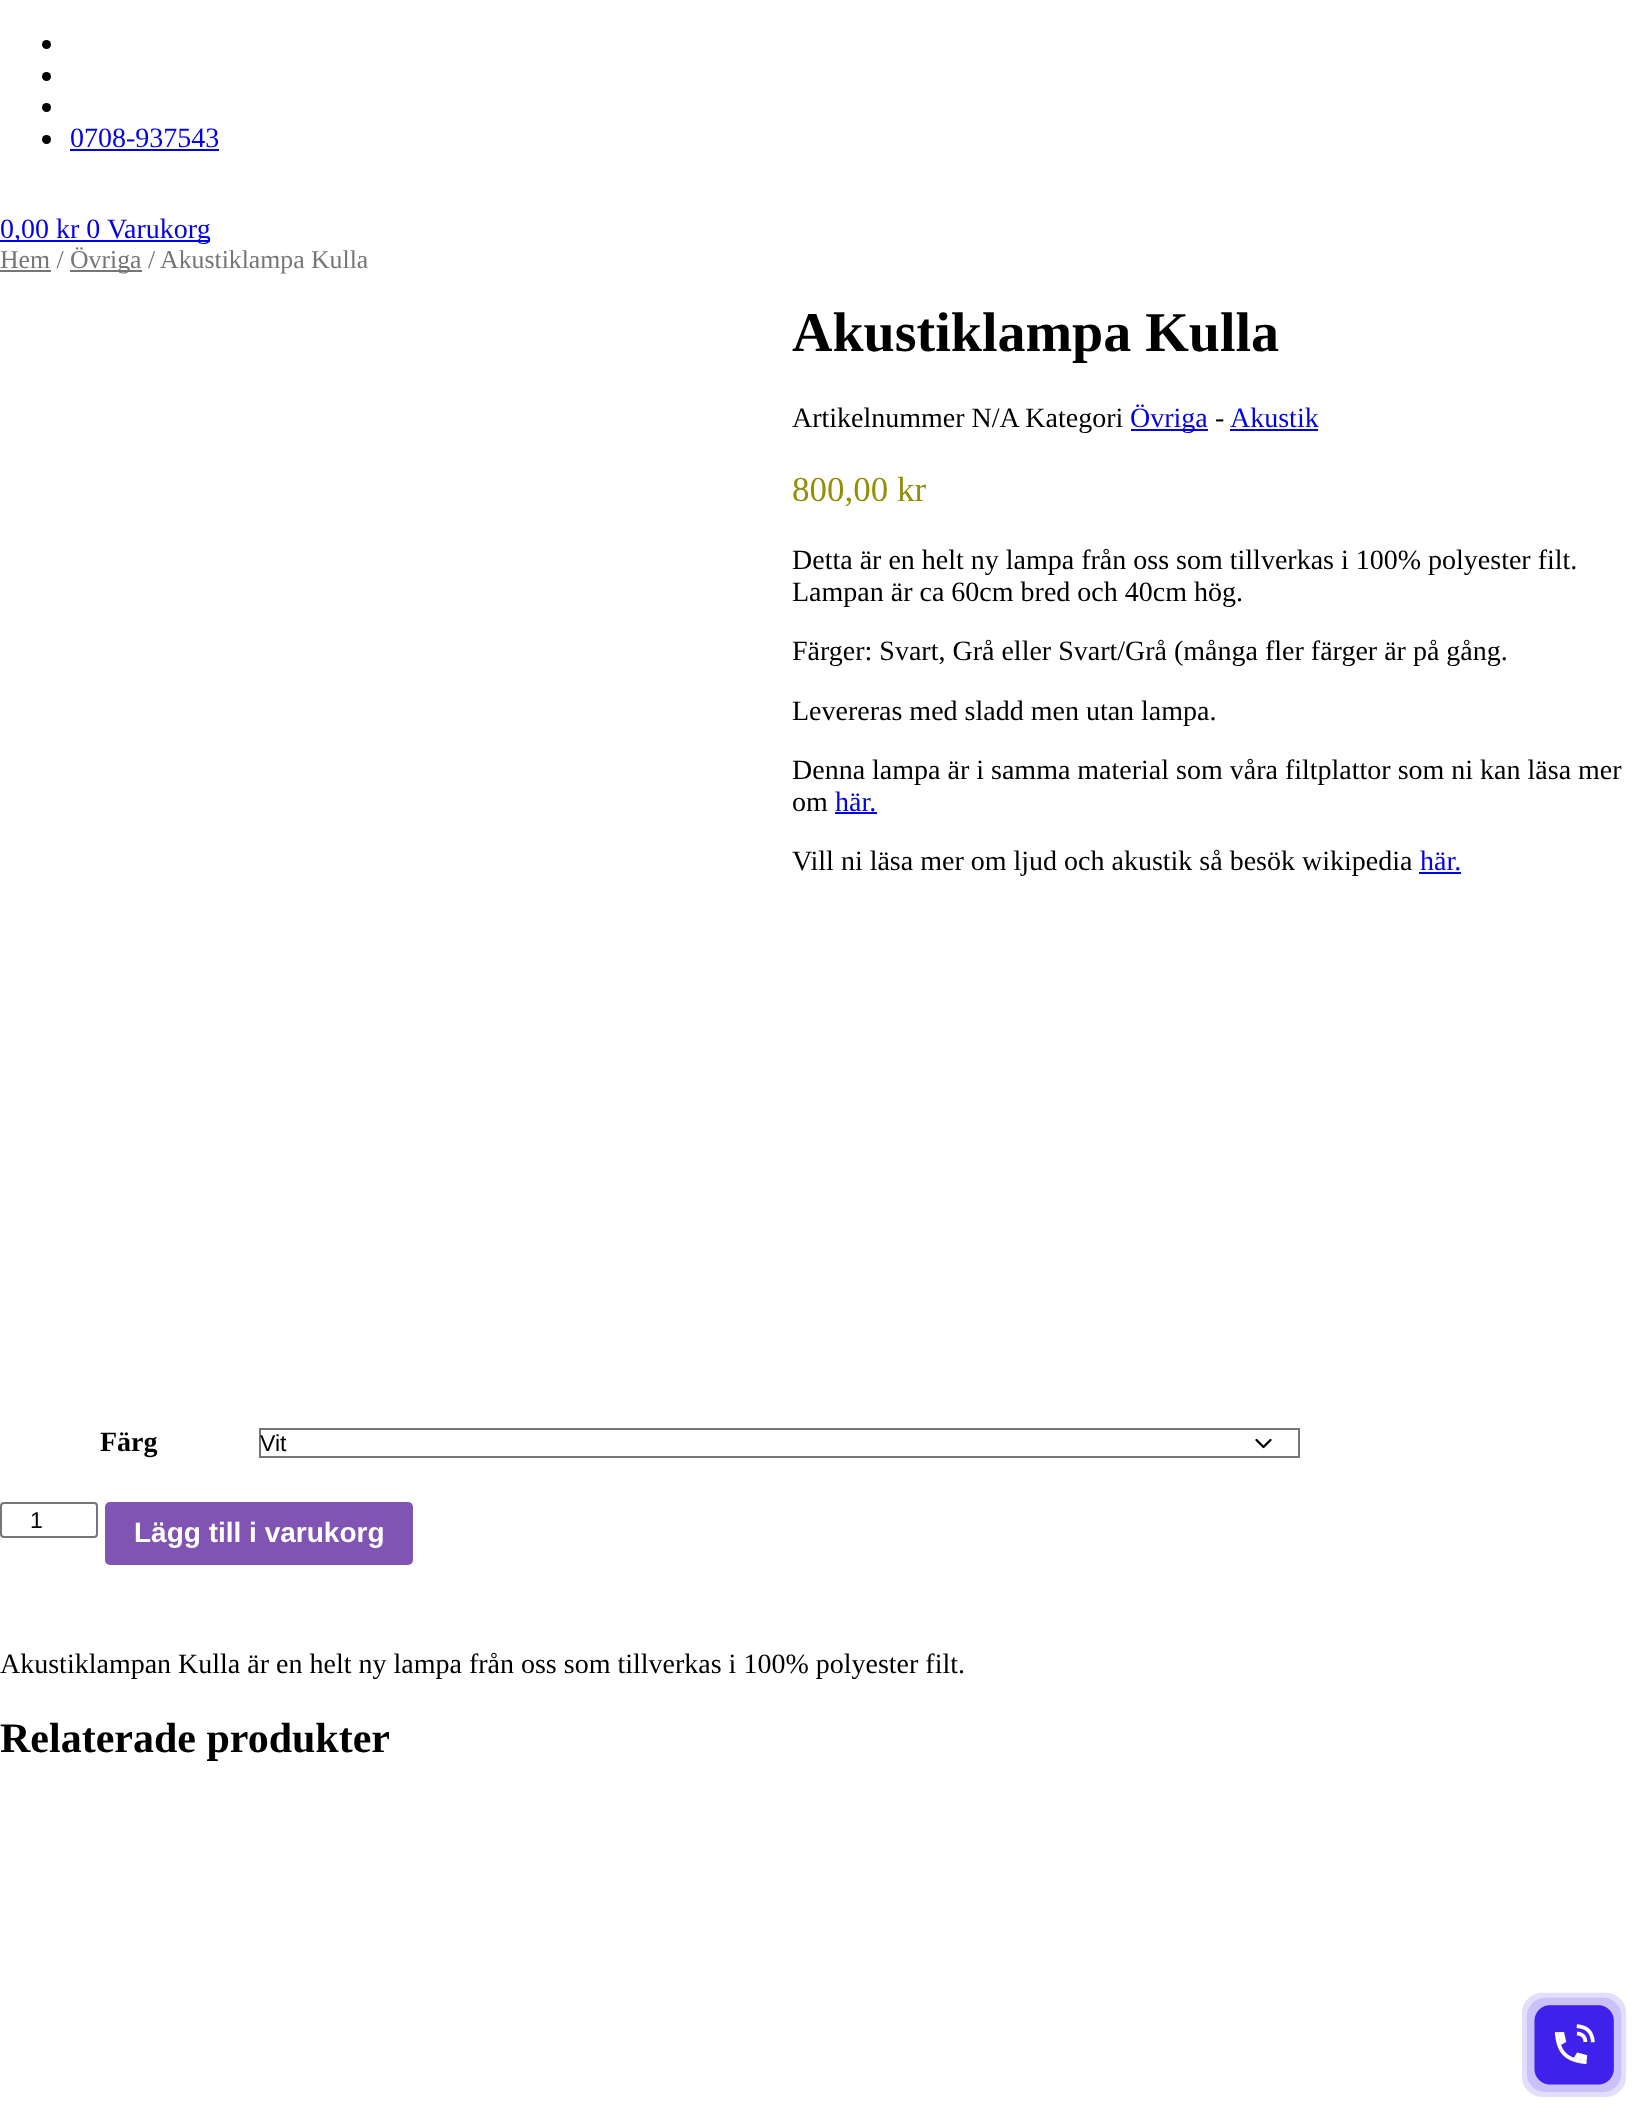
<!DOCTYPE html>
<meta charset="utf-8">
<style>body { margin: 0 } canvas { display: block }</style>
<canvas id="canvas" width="1649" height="2120"></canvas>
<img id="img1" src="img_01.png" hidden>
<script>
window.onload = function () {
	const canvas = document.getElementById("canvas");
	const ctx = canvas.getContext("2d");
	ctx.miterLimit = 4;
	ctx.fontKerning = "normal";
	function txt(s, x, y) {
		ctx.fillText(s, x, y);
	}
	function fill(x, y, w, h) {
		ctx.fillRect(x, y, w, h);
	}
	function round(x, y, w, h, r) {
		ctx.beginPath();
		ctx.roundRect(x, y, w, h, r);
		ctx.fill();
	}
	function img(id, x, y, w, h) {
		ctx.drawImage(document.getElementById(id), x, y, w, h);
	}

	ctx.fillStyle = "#FFFFFF";
	fill(0, 0, 1649, 2120);
	ctx.fillStyle = "#000000";
	ctx.beginPath();
	ctx.arc(46.5, 44.5, 4.5, 0, Math.PI * 2);
	ctx.fill();
	ctx.beginPath();
	ctx.arc(46.5, 76.5, 4.5, 0, Math.PI * 2);
	ctx.fill();
	ctx.beginPath();
	ctx.arc(46.5, 107.5, 4.5, 0, Math.PI * 2);
	ctx.fill();
	ctx.beginPath();
	ctx.arc(46.5, 139.5, 4.5, 0, Math.PI * 2);
	ctx.fill();
	ctx.fillStyle = "#0000EE";
	fill(70, 149, 149, 2);
	fill(0, 240, 79, 2);
	fill(79, 240, 131, 2);
	ctx.fillStyle = "#767676";
	fill(0, 270, 51, 2);
	fill(70, 270, 72, 2);
	ctx.fillStyle = "#0000EE";
	fill(1131, 429, 77, 2);
	fill(1230, 429, 88, 2);
	fill(835, 812, 42, 2);
	fill(1419, 872, 42, 2);
	ctx.beginPath();
	ctx.moveTo(1256.5, 1440);
	ctx.lineTo(1263.5, 1447);
	ctx.lineTo(1270.5, 1440);
	ctx.strokeStyle = "#000000";
	ctx.lineWidth = 2.3;
	ctx.lineCap = "round";
	ctx.lineJoin = "round";
	ctx.stroke();
	ctx.strokeStyle = "#767676";
	ctx.lineWidth = 2;
	ctx.lineJoin = "miter";
	ctx.strokeRect(260, 1429, 1039, 28);
	ctx.beginPath();
	ctx.roundRect(1, 1503, 96, 34, 3);
	ctx.stroke();
	ctx.fillStyle = "#7F54B3";
	round(105, 1502, 308, 63, 5);
	img("img1", 1522, 1992, 105, 105);
	ctx.font = "28px Liberation Serif";
	ctx.fillStyle = "#0000EE";
	txt("0708-937543", 70, 147);
	txt("0,00 kr 0", 0, 238);
	txt("Varukorg", 107, 238);
	ctx.font = "25.75px Liberation Serif";
	ctx.fillStyle = "#767676";
	txt("Hem /", 0, 268);
	txt("Övriga / Akustiklampa Kulla", 70, 268);
	ctx.font = "bold 56px Liberation Serif";
	ctx.fillStyle = "#000000";
	txt("Akustiklampa Kulla", 792, 351);
	ctx.font = "28px Liberation Serif";
	txt("Artikelnummer N/A Kategori", 792, 427);
	ctx.fillStyle = "#0000EE";
	txt("Övriga", 1130, 427);
	ctx.fillStyle = "#000000";
	txt("-", 1215, 427);
	ctx.fillStyle = "#0000EE";
	txt("Akustik", 1230, 427);
	ctx.font = "35px Liberation Serif";
	ctx.fillStyle = "#958E09";
	txt("800,00 kr", 792, 501);
	ctx.font = "28px Liberation Serif";
	ctx.fillStyle = "#000000";
	txt("Detta är en helt ny lampa från oss som tillverkas i 100% polyester filt.", 792, 569);
	txt("Lampan är ca 60cm bred och 40cm hög.", 792, 601);
	txt("Färger: Svart, Grå eller Svart/Grå (många fler färger är på gång.", 792, 660);
	txt("Levereras med sladd men utan lampa.", 792, 720);
	txt("Denna lampa är i samma material som våra filtplattor som ni kan läsa mer", 792, 779);
	txt("om", 792, 811);
	ctx.fillStyle = "#0000EE";
	txt("här.", 835, 811);
	ctx.fillStyle = "#000000";
	txt("Vill ni läsa mer om ljud och akustik så besök wikipedia", 792, 870);
	ctx.fillStyle = "#0000EE";
	txt("här.", 1420, 870);
	ctx.font = "bold 28px Liberation Serif";
	ctx.fillStyle = "#000000";
	txt("Färg", 100, 1451);
	ctx.font = "23px Liberation Sans";
	txt("Vit", 260, 1451);
	txt("1", 30, 1528);
	ctx.font = "bold 28px Liberation Sans";
	ctx.fillStyle = "#FFFFFF";
	txt("Lägg till i varukorg", 134, 1542);
	ctx.font = "28px Liberation Serif";
	ctx.fillStyle = "#000000";
	txt("Akustiklampan Kulla är en helt ny lampa från oss som tillverkas i 100% polyester filt.", 0, 1673);
	ctx.font = "bold 42px Liberation Serif";
	txt("Relaterade produkter", 0, 1752);
};
</script>
